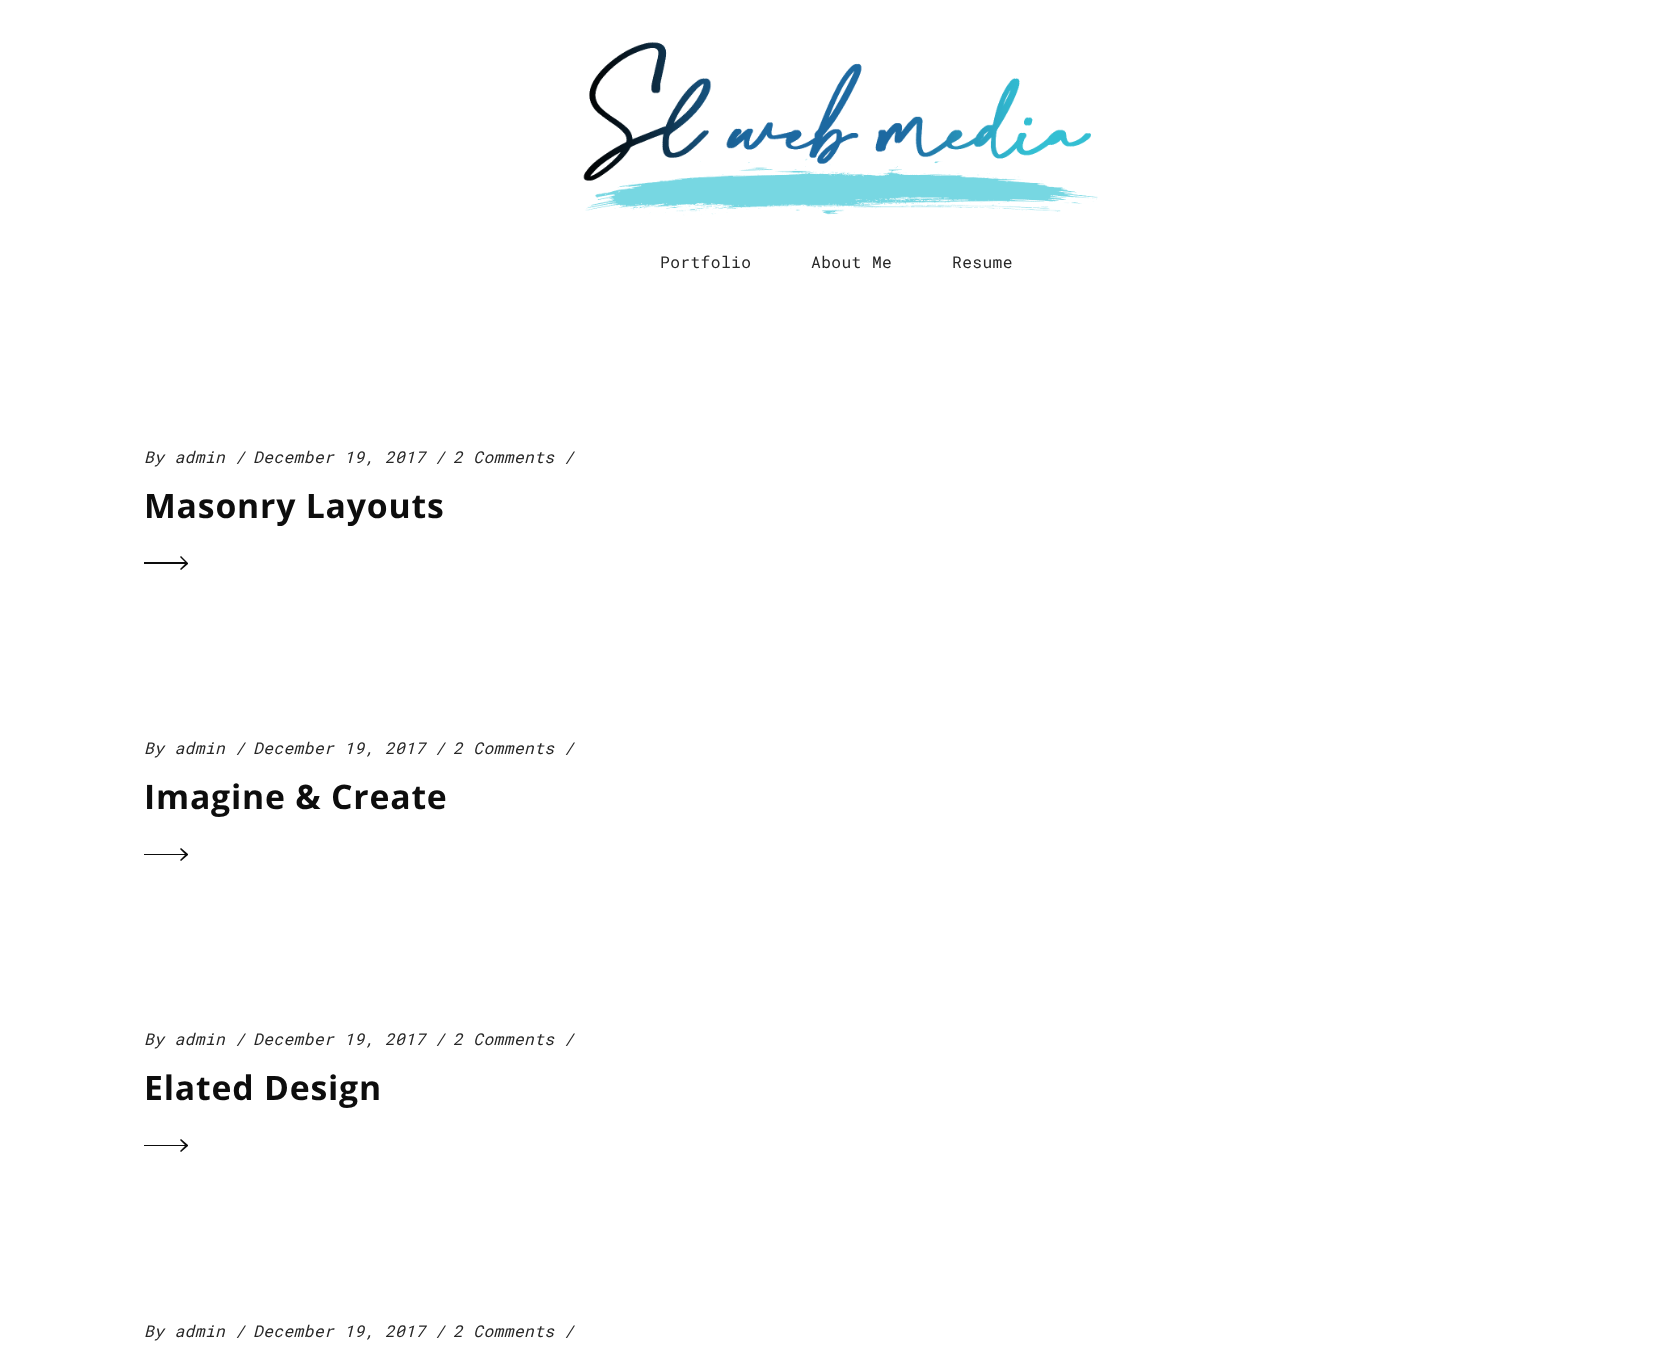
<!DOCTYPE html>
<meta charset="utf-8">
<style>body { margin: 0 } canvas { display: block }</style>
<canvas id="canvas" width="1662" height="1364"></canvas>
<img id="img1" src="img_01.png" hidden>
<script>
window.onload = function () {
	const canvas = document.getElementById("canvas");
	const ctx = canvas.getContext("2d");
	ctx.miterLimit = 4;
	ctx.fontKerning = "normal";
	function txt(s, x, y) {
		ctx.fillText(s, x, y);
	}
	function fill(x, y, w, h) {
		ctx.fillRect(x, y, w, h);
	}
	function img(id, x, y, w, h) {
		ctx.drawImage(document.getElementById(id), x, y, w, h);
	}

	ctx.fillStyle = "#FFFFFF";
	fill(0, 0, 1662, 1364);
	img("img1", 583, 42, 515, 174);
	ctx.fillStyle = "#0D0D0D";
	ctx.beginPath();
	ctx.moveTo(180, 569);
	ctx.lineTo(185, 564);
	ctx.lineTo(144, 564);
	ctx.lineTo(144, 562);
	ctx.lineTo(185, 562);
	ctx.lineTo(180, 557);
	ctx.lineTo(181, 556);
	ctx.lineTo(188, 563);
	ctx.lineTo(188, 564);
	ctx.lineTo(181, 570);
	ctx.closePath();
	ctx.fill();
	ctx.beginPath();
	ctx.moveTo(180, 860);
	ctx.lineTo(185, 855);
	ctx.lineTo(144, 855);
	ctx.lineTo(144, 854);
	ctx.lineTo(185, 854);
	ctx.lineTo(180, 849);
	ctx.lineTo(181, 848);
	ctx.lineTo(188, 854);
	ctx.lineTo(188, 855);
	ctx.lineTo(181, 861);
	ctx.closePath();
	ctx.fill();
	ctx.beginPath();
	ctx.moveTo(180, 1151);
	ctx.lineTo(185, 1146);
	ctx.lineTo(144, 1146);
	ctx.lineTo(144, 1145);
	ctx.lineTo(185, 1145);
	ctx.lineTo(180, 1140);
	ctx.lineTo(181, 1139);
	ctx.lineTo(188, 1145);
	ctx.lineTo(188, 1146);
	ctx.lineTo(181, 1152);
	ctx.closePath();
	ctx.fill();
	ctx.letterSpacing = "0.4px";
	ctx.font = "16.25px Roboto Mono";
	ctx.fillStyle = "#272727";
	txt("Portfolio", 660, 268);
	txt("About Me", 811, 268);
	txt("Resume", 952, 268);
	ctx.font = "italic 16.25px Roboto Mono";
	txt("By admin", 144, 463);
	txt("/", 235, 463);
	txt("December 19, 2017", 253, 463);
	txt("/", 435, 463);
	txt("2 Comments", 453, 463);
	txt("/", 564, 463);
	ctx.letterSpacing = "0.8px";
	ctx.font = "bold 33.75px Open Sans";
	ctx.fillStyle = "#0D0D0D";
	txt("Masonry Layouts", 144, 518);
	ctx.letterSpacing = "0.4px";
	ctx.font = "italic 16.25px Roboto Mono";
	ctx.fillStyle = "#272727";
	txt("By admin", 144, 754);
	txt("/", 235, 754);
	txt("December 19, 2017", 253, 754);
	txt("/", 435, 754);
	txt("2 Comments", 453, 754);
	txt("/", 564, 754);
	ctx.letterSpacing = "0.8px";
	ctx.font = "bold 33.75px Open Sans";
	ctx.fillStyle = "#0D0D0D";
	txt("Imagine & Create", 144, 809);
	ctx.letterSpacing = "0.4px";
	ctx.font = "italic 16.25px Roboto Mono";
	ctx.fillStyle = "#272727";
	txt("By admin", 144, 1045);
	txt("/", 235, 1045);
	txt("December 19, 2017", 253, 1045);
	txt("/", 435, 1045);
	txt("2 Comments", 453, 1045);
	txt("/", 564, 1045);
	ctx.letterSpacing = "0.8px";
	ctx.font = "bold 33.75px Open Sans";
	ctx.fillStyle = "#0D0D0D";
	txt("Elated Design", 144, 1100);
	ctx.letterSpacing = "0.4px";
	ctx.font = "italic 16.25px Roboto Mono";
	ctx.fillStyle = "#272727";
	txt("By admin", 144, 1337);
	txt("/", 235, 1337);
	txt("December 19, 2017", 253, 1337);
	txt("/", 435, 1337);
	txt("2 Comments", 453, 1337);
	txt("/", 564, 1337);
};
</script>
